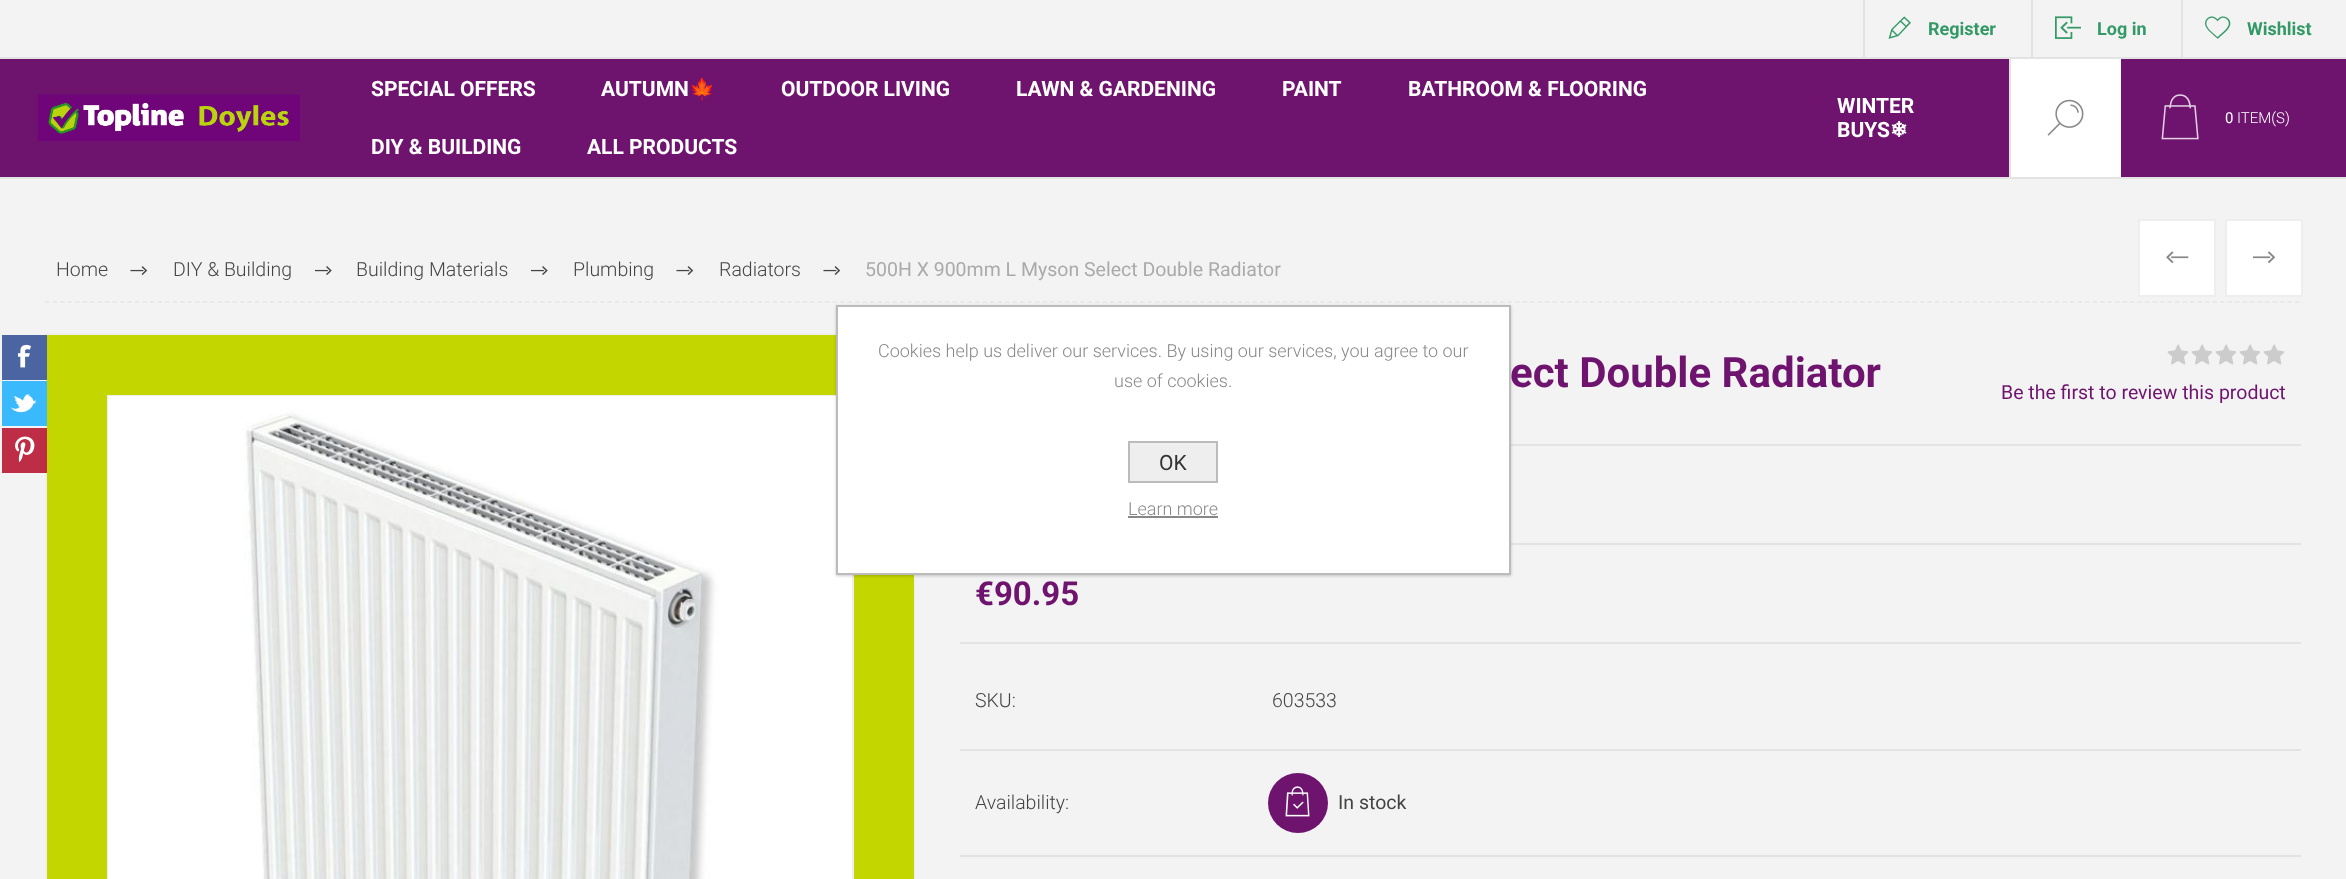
<!DOCTYPE html>
<meta charset="utf-8">
<style>body { margin: 0 } canvas { display: block }</style>
<canvas id="canvas" width="2346" height="879"></canvas>
<img id="img1" src="img_01.png" hidden>
<img id="img2" src="img_02.png" hidden>
<img id="img3" src="img_03.png" hidden>
<img id="img4" src="img_04.png" hidden>
<img id="img5" src="img_05.png" hidden>
<img id="img6" src="img_06.png" hidden>
<img id="img7" src="img_07.png" hidden>
<img id="img8" src="img_08.png" hidden>
<img id="img9" src="img_09.png" hidden>
<img id="img10" src="img_10.png" hidden>
<img id="img11" src="img_11.png" hidden>
<img id="img12" src="img_12.png" hidden>
<img id="img13" src="img_13.png" hidden>
<img id="img14" src="img_14.png" hidden>
<img id="img15" src="img_15.png" hidden>
<img id="img16" src="img_16.png" hidden>
<script>
window.onload = function () {
	const canvas = document.getElementById("canvas");
	const ctx = canvas.getContext("2d");
	ctx.miterLimit = 4;
	ctx.fontKerning = "normal";
	function txt(s, x, y) {
		ctx.fillText(s, x, y);
	}
	function fill(x, y, w, h) {
		ctx.fillRect(x, y, w, h);
	}
	function img(id, x, y, w, h) {
		ctx.drawImage(document.getElementById(id), x, y, w, h);
	}

	ctx.fillStyle = "#F3F3F3";
	fill(0, 0, 2346, 879);
	ctx.fillStyle = "#E3E3E3";
	fill(0, 57, 2346, 2);
	fill(1863, 0, 2, 57);
	img("img1", 1888, 16, 23, 23);
	fill(2031, 0, 2, 57);
	img("img2", 2055, 16, 26, 23);
	fill(2181, 0, 2, 57);
	img("img3", 2205, 16, 26, 23);
	fill(0, 177, 2346, 2);
	ctx.fillStyle = "#6E146E";
	fill(0, 59, 2009, 118);
	img("img4", 37, 94, 263, 47);
	ctx.fillStyle = "#FFFFFF";
	fill(2011, 59, 110, 118);
	ctx.fillStyle = "#E3E3E3";
	fill(2009, 59, 2, 118);
	img("img5", 2047, 99, 37, 37);
	ctx.fillStyle = "#6E146E";
	fill(2121, 59, 225, 118);
	img("img6", 2161, 94, 38, 46);
	ctx.beginPath();
	ctx.moveTo(45, 302);
	ctx.lineTo(2301, 302);
	ctx.strokeStyle = "#E6E6E6";
	ctx.lineWidth = 1.5;
	ctx.setLineDash([4.5, 3]);
	ctx.stroke();
	img("img7", 130, 266, 18, 9);
	img("img8", 315, 266, 17, 9);
	img("img8", 531, 266, 17, 9);
	img("img7", 676, 266, 18, 9);
	img("img7", 823, 266, 18, 9);
	ctx.fillStyle = "#FFFFFF";
	ctx.beginPath();
	ctx.rect(2139, 220, 76, 76);
	ctx.fill();
	ctx.strokeStyle = "#EEEEEE";
	ctx.lineWidth = 2;
	ctx.setLineDash([]);
	ctx.stroke();
	img("img9", 2166, 251, 23, 13);
	ctx.beginPath();
	ctx.rect(2226, 220, 76, 76);
	ctx.fill();
	ctx.stroke();
	img("img10", 2253, 251, 23, 13);
	ctx.strokeRect(46, 334, 868, 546);
	ctx.fillStyle = "#4A65A2";
	fill(2, 335, 45, 45);
	img("img11", 18, 344, 13, 24);
	ctx.fillStyle = "#3ABAFD";
	fill(2, 381, 45, 45);
	img("img12", 10, 394, 27, 19);
	ctx.fillStyle = "#BD2D45";
	fill(2, 428, 45, 45);
	img("img13", 15, 436, 20, 26);
	ctx.fillStyle = "#C3D600";
	fill(47, 335, 867, 544);
	ctx.strokeRect(108, 396, 745, 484);
	img("img14", 108, 396, 744, 483);
	ctx.fillStyle = "#E3E3E3";
	fill(1511, 444, 790, 2);
	img("img15", 2167, 344, 118, 21);
	fill(1511, 543, 790, 2);
	fill(960, 642, 1341, 2);
	fill(960, 749, 1341, 2);
	fill(960, 855, 1341, 2);
	ctx.fillStyle = "#6E146E";
	ctx.beginPath();
	ctx.arc(1298, 803, 30, 0, Math.PI * 2);
	ctx.fill();
	img("img16", 1285, 786, 25, 31);
	ctx.fillStyle = "rgba(0, 0, 0, 0.2)";
	ctx.filter = "blur(1.5px)";
	ctx.beginPath();
	ctx.rect(836, 306, 675, 270);
	ctx.fill();
	ctx.filter = "none";
	ctx.fillStyle = "#FFFFFF";
	ctx.beginPath();
	ctx.rect(837, 306, 673, 268);
	ctx.fill();
	ctx.strokeStyle = "#BBBBBB";
	ctx.stroke();
	ctx.fillStyle = "#EEEEEE";
	ctx.beginPath();
	ctx.rect(1129, 442, 88, 40);
	ctx.fill();
	ctx.stroke();
	ctx.fillStyle = "#888888";
	fill(1128, 516, 90, 2);
	ctx.font = "bold 18px Roboto";
	ctx.fillStyle = "#339966";
	txt("Register", 1928, 35);
	txt("Log in", 2097, 35);
	txt("Wishlist", 2247, 35);
	ctx.font = "bold 21px Roboto";
	ctx.fillStyle = "#FFFFFF";
	txt("SPECIAL OFFERS", 371, 96);
	txt("AUTUMN", 601, 96);
	ctx.font = "bold 21px Noto Color Emoji";
	txt("🍁", 689, 96);
	ctx.font = "bold 21px Roboto";
	txt("OUTDOOR LIVING", 781, 96);
	txt("LAWN & GARDENING", 1016, 96);
	txt("PAINT", 1282, 96);
	txt("BATHROOM & FLOORING", 1408, 96);
	txt("DIY & BUILDING", 371, 154);
	txt("ALL PRODUCTS", 587, 154);
	txt("WINTER", 1837, 113);
	txt("BUYS", 1837, 137);
	ctx.font = "bold 21px DejaVu Sans";
	txt("❄", 1890, 137);
	ctx.font = "15px Roboto";
	txt("0", 2225, 123);
	ctx.font = "300 15px Roboto";
	txt("ITEM(S)", 2237, 123);
	ctx.font = "300 19.5px Roboto";
	ctx.fillStyle = "#444444";
	txt("Home", 56, 276);
	txt("DIY & Building", 173, 276);
	txt("Building Materials", 356, 276);
	txt("Plumbing", 573, 276);
	txt("Radiators", 719, 276);
	ctx.font = "19.5px Roboto";
	ctx.fillStyle = "#AAAAAA";
	txt("500H X 900mm L Myson Select Double Radiator", 865, 276);
	ctx.font = "bold 42px Roboto";
	ctx.fillStyle = "#6E146E";
	txt("ect Double Radiator", 1510, 387);
	ctx.font = "19.5px Roboto";
	txt("Be the first to review this product", 2001, 399);
	ctx.font = "bold 33px Roboto";
	txt("€90.95", 975, 605);
	ctx.font = "300 19.5px Roboto";
	ctx.fillStyle = "#444444";
	txt("SKU:", 975, 707);
	txt("603533", 1272, 707);
	txt("Availability:", 975, 809);
	ctx.font = "19.5px Roboto";
	txt("In stock", 1338, 809);
	ctx.font = "300 18px Roboto";
	ctx.fillStyle = "#888888";
	txt("Cookies help us deliver our services. By using our services, you agree to our", 878, 357);
	txt("use of cookies.", 1114, 387);
	ctx.font = "21px Roboto";
	ctx.fillStyle = "#333333";
	txt("OK", 1159, 470);
	ctx.font = "300 18px Roboto";
	ctx.fillStyle = "#888888";
	txt("Learn more", 1128, 515);
};
</script>
